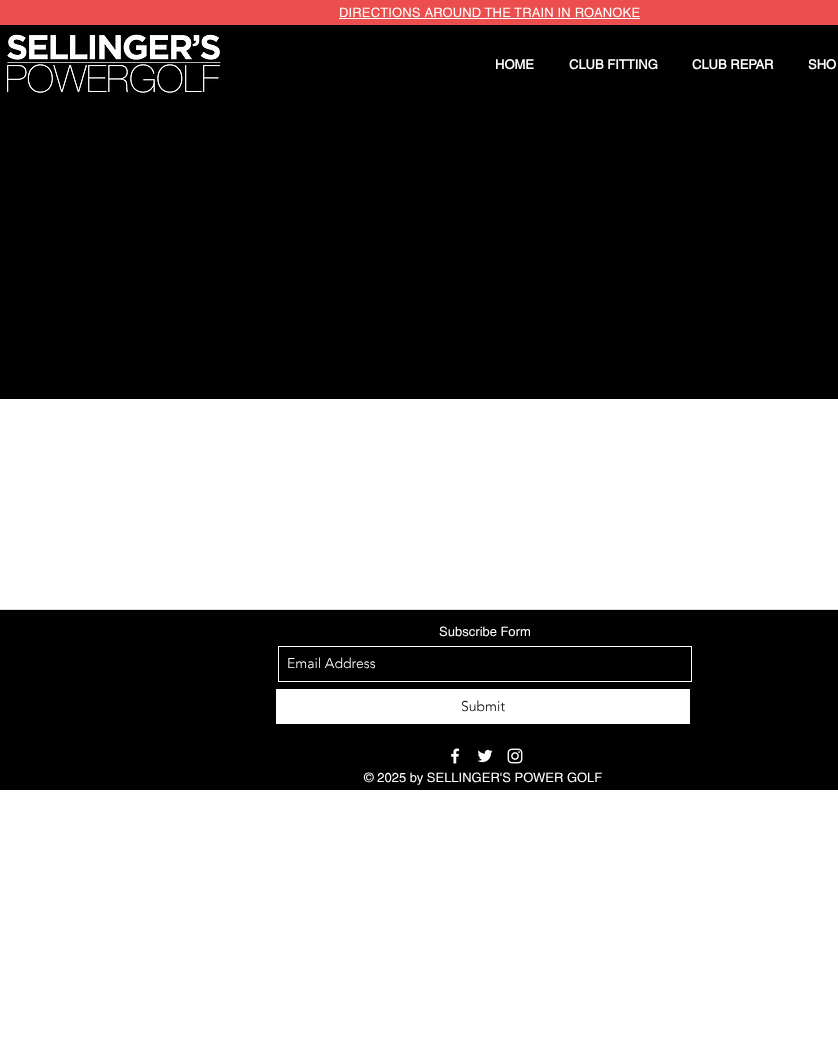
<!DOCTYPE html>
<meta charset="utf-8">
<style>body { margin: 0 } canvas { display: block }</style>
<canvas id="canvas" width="838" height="1060"></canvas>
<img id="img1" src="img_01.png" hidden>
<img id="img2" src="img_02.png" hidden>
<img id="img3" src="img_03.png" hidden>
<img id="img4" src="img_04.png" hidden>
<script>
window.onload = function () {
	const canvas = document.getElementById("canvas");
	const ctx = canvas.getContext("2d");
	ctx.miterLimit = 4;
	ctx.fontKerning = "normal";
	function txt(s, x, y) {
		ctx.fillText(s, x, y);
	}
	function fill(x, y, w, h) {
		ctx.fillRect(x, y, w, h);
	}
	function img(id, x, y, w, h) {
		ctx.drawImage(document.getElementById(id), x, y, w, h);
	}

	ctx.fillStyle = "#FFFFFF";
	fill(0, 0, 838, 1060);
	ctx.fillStyle = "#EC4D4D";
	fill(0, 0, 838, 25);
	ctx.fillStyle = "#FFFFFF";
	fill(339, 18, 301, 1);
	ctx.fillStyle = "#000000";
	fill(0, 25, 838, 374);
	img("img1", 7, 34, 214, 59);
	ctx.fillStyle = "#D9D9D9";
	fill(0, 609, 838, 1);
	ctx.fillStyle = "#000000";
	fill(0, 610, 838, 180);
	ctx.strokeStyle = "#FFFFFF";
	ctx.strokeRect(278.5, 646.5, 413, 35);
	ctx.fillStyle = "#FFFFFF";
	fill(276, 689, 414, 35);
	img("img2", 451, 748, 9, 16);
	img("img3", 477, 749, 16, 14);
	img("img4", 507, 748, 16, 16);
	ctx.letterSpacing = "0.15px";
	ctx.font = "13px helvetica";
	txt("DIRECTIONS AROUND THE TRAIN IN ROANOKE", 339, 17);
	ctx.letterSpacing = "0px";
	ctx.font = "bold 13px helvetica";
	txt("HOME", 495, 69);
	txt("CLUB FITTING", 569, 69);
	txt("CLUB REPAR", 692, 69);
	txt("SHO", 808, 69);
	ctx.font = "13px helvetica";
	txt("Subscribe Form", 439, 636);
	ctx.font = "300 14px 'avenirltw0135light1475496'";
	txt("Email Address", 287, 668);
	ctx.fillStyle = "#000000";
	txt("Submit", 461, 711);
	ctx.font = "13px helvetica";
	ctx.fillStyle = "#FFFFFF";
	txt("© 2025 by SELLINGER'S POWER GOLF", 364, 782);
};
</script>
